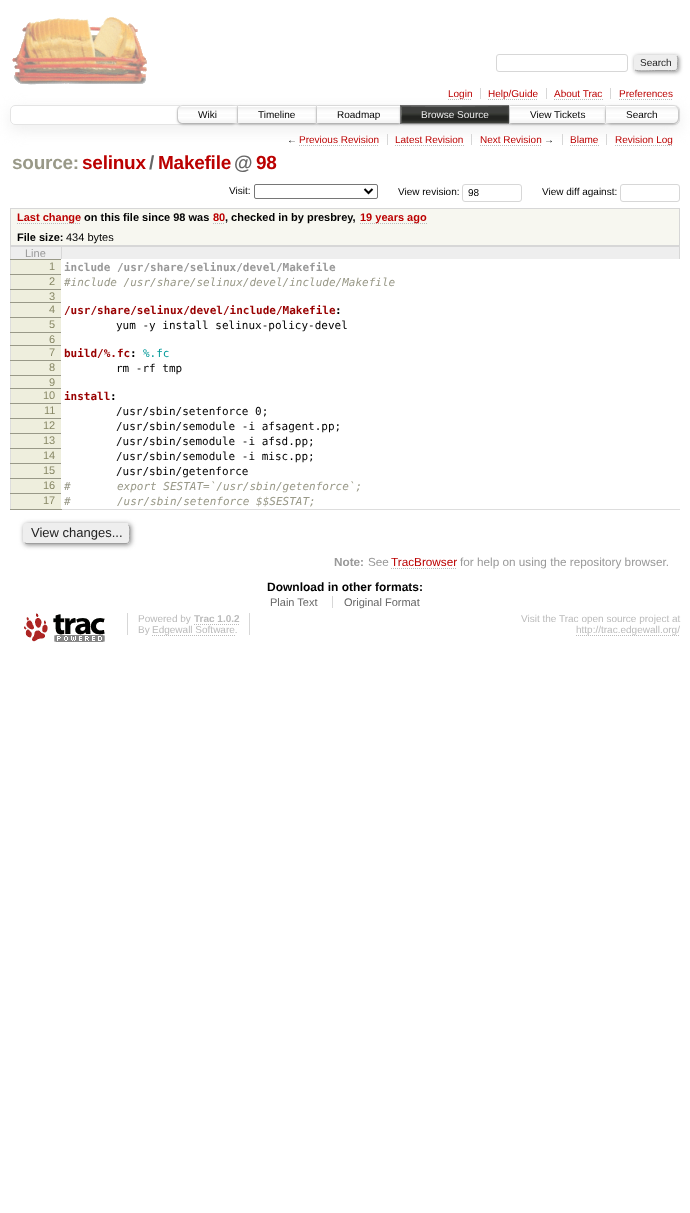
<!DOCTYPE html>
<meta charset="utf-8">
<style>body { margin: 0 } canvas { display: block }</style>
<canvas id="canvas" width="690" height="1213"></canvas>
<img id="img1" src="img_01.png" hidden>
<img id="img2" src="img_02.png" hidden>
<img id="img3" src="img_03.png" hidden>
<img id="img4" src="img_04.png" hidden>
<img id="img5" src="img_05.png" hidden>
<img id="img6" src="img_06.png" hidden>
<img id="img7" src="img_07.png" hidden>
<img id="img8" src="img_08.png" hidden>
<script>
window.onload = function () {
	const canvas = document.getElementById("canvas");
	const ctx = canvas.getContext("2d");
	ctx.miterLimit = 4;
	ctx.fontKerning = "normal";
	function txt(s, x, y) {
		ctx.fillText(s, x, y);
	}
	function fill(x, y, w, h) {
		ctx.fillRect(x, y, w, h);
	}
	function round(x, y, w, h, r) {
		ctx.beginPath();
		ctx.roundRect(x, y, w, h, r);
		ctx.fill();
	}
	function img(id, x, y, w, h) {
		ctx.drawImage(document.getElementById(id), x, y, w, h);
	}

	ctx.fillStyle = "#FFFFFF";
	fill(0, 0, 690, 1213);
	img("img1", 12, 17, 135, 68);
	ctx.beginPath();
	ctx.roundRect(496.5, 54.5, 131, 17, 2.5);
	ctx.strokeStyle = "#D7D7D7";
	ctx.stroke();
	ctx.fillStyle = "#888888";
	ctx.filter = "blur(2px)";
	ctx.beginPath();
	ctx.roundRect(635, 56, 44, 16, 3);
	ctx.fill();
	ctx.filter = "none";
	ctx.fillStyle = "#EEEEEE";
	round(634, 55, 44, 16, 3);
	ctx.beginPath();
	ctx.moveTo(677, 56);
	ctx.bezierCurveTo(678.5, 58, 677.5, 61, 677.5, 63);
	ctx.bezierCurveTo(677.5, 71.5, 678, 70.5, 668.5, 70.5);
	ctx.lineTo(656, 70.5);
	ctx.bezierCurveTo(653, 70.5, 637, 71.5, 635, 70);
	ctx.strokeStyle = "#9F9F9F";
	ctx.stroke();
	ctx.beginPath();
	ctx.moveTo(635, 70);
	ctx.bezierCurveTo(633.5, 68, 634.5, 65, 634.5, 63);
	ctx.bezierCurveTo(634.5, 54.5, 634, 55.5, 643.5, 55.5);
	ctx.lineTo(656, 55.5);
	ctx.bezierCurveTo(659, 55.5, 675, 54.5, 677, 56);
	ctx.strokeStyle = "#EEEEEE";
	ctx.stroke();
	ctx.save();
	ctx.beginPath();
	ctx.moveTo(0, 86);
	ctx.lineTo(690, 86);
	ctx.lineTo(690, 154);
	ctx.lineTo(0, 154);
	ctx.closePath();
	ctx.moveTo(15, 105);
	ctx.lineTo(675, 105);
	ctx.bezierCurveTo(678, 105, 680, 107, 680, 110);
	ctx.lineTo(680, 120);
	ctx.bezierCurveTo(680, 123, 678, 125, 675, 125);
	ctx.lineTo(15, 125);
	ctx.bezierCurveTo(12, 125, 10, 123, 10, 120);
	ctx.lineTo(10, 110);
	ctx.bezierCurveTo(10, 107, 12, 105, 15, 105);
	ctx.closePath();
	ctx.clip("evenodd");
	ctx.filter = "blur(7.5px)";
	ctx.beginPath();
	ctx.roundRect(10, 110, 670, 20, 5);
	ctx.fill();
	ctx.filter = "none";
	ctx.restore();
	ctx.fillStyle = "#D7D7D7";
	fill(480, 88, 1, 11);
	ctx.beginPath();
	ctx.moveTo(448, 99.5);
	ctx.lineTo(472, 99.5);
	ctx.strokeStyle = "#BBBBBB";
	ctx.setLineDash([1, 1]);
	ctx.stroke();
	fill(546, 88, 1, 11);
	ctx.beginPath();
	ctx.moveTo(488, 99.5);
	ctx.lineTo(538, 99.5);
	ctx.stroke();
	fill(610, 88, 1, 11);
	ctx.beginPath();
	ctx.moveTo(554, 99.5);
	ctx.lineTo(603, 99.5);
	ctx.stroke();
	ctx.beginPath();
	ctx.moveTo(619, 99.5);
	ctx.lineTo(673, 99.5);
	ctx.stroke();
	ctx.beginPath();
	ctx.roundRect(10.5, 105.5, 669, 19, 4.5);
	ctx.strokeStyle = "#E4E4E4";
	ctx.setLineDash([]);
	ctx.stroke();
	ctx.fillStyle = "#FFFFFF";
	ctx.beginPath();
	ctx.roundRect(177, 105, 61, 19, [5, 0, 0, 5]);
	ctx.fill();
	img("img2", 177, 107, 60, 17);
	ctx.beginPath();
	ctx.roundRect(177.5, 105.5, 60, 18, [4.5, 0, 0, 4.5]);
	ctx.stroke();
	ctx.save();
	ctx.beginPath();
	ctx.moveTo(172, 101);
	ctx.lineTo(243, 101);
	ctx.lineTo(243, 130);
	ctx.lineTo(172, 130);
	ctx.closePath();
	ctx.moveTo(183, 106);
	ctx.lineTo(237, 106);
	ctx.lineTo(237, 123);
	ctx.lineTo(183, 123);
	ctx.bezierCurveTo(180, 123, 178, 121, 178, 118);
	ctx.lineTo(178, 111);
	ctx.bezierCurveTo(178, 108, 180, 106, 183, 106);
	ctx.closePath();
	ctx.clip("evenodd");
	ctx.fillStyle = "#999999";
	ctx.filter = "blur(1.5px)";
	ctx.beginPath();
	ctx.roundRect(178, 107, 59, 17, 5);
	ctx.fill();
	ctx.filter = "none";
	ctx.restore();
	fill(238, 108, 2, 15);
	img("img3", 238, 107, 78, 16);
	ctx.strokeRect(237.5, 105.5, 79, 18);
	ctx.save();
	ctx.beginPath();
	ctx.moveTo(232, 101);
	ctx.lineTo(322, 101);
	ctx.lineTo(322, 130);
	ctx.lineTo(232, 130);
	ctx.closePath();
	ctx.moveTo(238, 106);
	ctx.lineTo(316, 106);
	ctx.lineTo(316, 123);
	ctx.lineTo(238, 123);
	ctx.closePath();
	ctx.clip("evenodd");
	ctx.fillStyle = "#999999";
	ctx.filter = "blur(1.5px)";
	ctx.beginPath();
	ctx.rect(238, 107, 78, 17);
	ctx.fill();
	ctx.filter = "none";
	ctx.restore();
	fill(317, 106, 2, 17);
	img("img4", 317, 107, 83, 16);
	ctx.strokeRect(316.5, 105.5, 84, 18);
	ctx.save();
	ctx.beginPath();
	ctx.moveTo(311, 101);
	ctx.lineTo(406, 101);
	ctx.lineTo(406, 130);
	ctx.lineTo(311, 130);
	ctx.closePath();
	ctx.moveTo(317, 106);
	ctx.lineTo(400, 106);
	ctx.lineTo(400, 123);
	ctx.lineTo(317, 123);
	ctx.closePath();
	ctx.clip("evenodd");
	ctx.fillStyle = "#999999";
	ctx.filter = "blur(1.5px)";
	ctx.beginPath();
	ctx.rect(317, 107, 83, 17);
	ctx.fill();
	ctx.filter = "none";
	ctx.restore();
	ctx.strokeStyle = "#666666";
	ctx.strokeRect(400.5, 105.5, 109, 18);
	ctx.fillStyle = "#999999";
	ctx.filter = "blur(1.5px)";
	ctx.beginPath();
	ctx.rect(401, 107, 108, 17);
	ctx.fill();
	ctx.filter = "none";
	ctx.fillStyle = "#000000";
	fill(401, 106, 108, 17);
	img("img5", 401, 106, 108, 17);
	ctx.fillStyle = "#FFFFFF";
	fill(510, 106, 2, 17);
	img("img6", 510, 107, 95, 16);
	ctx.strokeStyle = "#E4E4E4";
	ctx.strokeRect(509.5, 105.5, 96, 18);
	ctx.save();
	ctx.beginPath();
	ctx.moveTo(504, 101);
	ctx.lineTo(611, 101);
	ctx.lineTo(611, 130);
	ctx.lineTo(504, 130);
	ctx.closePath();
	ctx.moveTo(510, 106);
	ctx.lineTo(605, 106);
	ctx.lineTo(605, 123);
	ctx.lineTo(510, 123);
	ctx.closePath();
	ctx.clip("evenodd");
	ctx.fillStyle = "#999999";
	ctx.filter = "blur(1.5px)";
	ctx.beginPath();
	ctx.rect(510, 107, 95, 17);
	ctx.fill();
	ctx.filter = "none";
	ctx.restore();
	ctx.beginPath();
	ctx.roundRect(605, 105, 74, 19, [0, 5, 5, 0]);
	ctx.fill();
	img("img7", 606, 107, 73, 17);
	ctx.beginPath();
	ctx.roundRect(605.5, 105.5, 73, 18, [0, 4.5, 4.5, 0]);
	ctx.stroke();
	ctx.save();
	ctx.beginPath();
	ctx.moveTo(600, 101);
	ctx.lineTo(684, 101);
	ctx.lineTo(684, 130);
	ctx.lineTo(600, 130);
	ctx.closePath();
	ctx.moveTo(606, 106);
	ctx.lineTo(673, 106);
	ctx.bezierCurveTo(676, 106, 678, 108, 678, 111);
	ctx.lineTo(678, 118);
	ctx.bezierCurveTo(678, 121, 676, 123, 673, 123);
	ctx.lineTo(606, 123);
	ctx.closePath();
	ctx.clip("evenodd");
	ctx.fillStyle = "#999999";
	ctx.filter = "blur(1.5px)";
	ctx.beginPath();
	ctx.roundRect(606, 107, 72, 17, 5);
	ctx.fill();
	ctx.filter = "none";
	ctx.restore();
	ctx.fillStyle = "#D7D7D7";
	fill(387, 134, 1, 11);
	ctx.beginPath();
	ctx.moveTo(299, 145.5);
	ctx.lineTo(379, 145.5);
	ctx.strokeStyle = "#BBBBBB";
	ctx.setLineDash([1, 1]);
	ctx.stroke();
	fill(471, 134, 1, 11);
	ctx.beginPath();
	ctx.moveTo(395, 145.5);
	ctx.lineTo(464, 145.5);
	ctx.stroke();
	fill(562, 134, 1, 11);
	ctx.beginPath();
	ctx.moveTo(480, 145.5);
	ctx.lineTo(542, 145.5);
	ctx.stroke();
	fill(606, 134, 1, 11);
	ctx.beginPath();
	ctx.moveTo(570, 145.5);
	ctx.lineTo(599, 145.5);
	ctx.stroke();
	ctx.beginPath();
	ctx.moveTo(615, 145.5);
	ctx.lineTo(673, 145.5);
	ctx.stroke();
	ctx.beginPath();
	ctx.roundRect(254.5, 184.5, 123, 14, 1.5);
	ctx.strokeStyle = "#767676";
	ctx.setLineDash([]);
	ctx.stroke();
	ctx.beginPath();
	ctx.moveTo(364.5, 189);
	ctx.lineTo(368.5, 193);
	ctx.lineTo(372.5, 189);
	ctx.strokeStyle = "#000000";
	ctx.lineWidth = 2;
	ctx.stroke();
	ctx.beginPath();
	ctx.roundRect(462.5, 184.5, 59, 17, 2.5);
	ctx.strokeStyle = "#D7D7D7";
	ctx.lineWidth = 1;
	ctx.stroke();
	ctx.beginPath();
	ctx.roundRect(620.5, 184.5, 59, 17, 2.5);
	ctx.stroke();
	ctx.fillStyle = "#F7F7F0";
	fill(11, 209, 668, 36);
	ctx.fillStyle = "#D7D7D7";
	fill(10, 208, 670, 1);
	fill(679, 208, 1, 38);
	fill(10, 245, 670, 1);
	fill(10, 208, 1, 38);
	ctx.beginPath();
	ctx.moveTo(17, 223.5);
	ctx.lineTo(81, 223.5);
	ctx.strokeStyle = "#BBBBBB";
	ctx.setLineDash([1, 1]);
	ctx.stroke();
	ctx.beginPath();
	ctx.moveTo(213, 223.5);
	ctx.lineTo(225, 223.5);
	ctx.stroke();
	ctx.beginPath();
	ctx.moveTo(360, 223.5);
	ctx.lineTo(427, 223.5);
	ctx.stroke();
	ctx.fillStyle = "#DDDDDD";
	fill(62, 509, 618, 1);
	fill(10, 246, 1, 264);
	ctx.fillStyle = "#EEEEEE";
	fill(62, 247, 617, 12);
	ctx.fillStyle = "#D7D7D7";
	fill(10, 246, 670, 1);
	fill(679, 246, 1, 14);
	ctx.fillStyle = "#EEEEEE";
	fill(11, 247, 50, 12);
	ctx.fillStyle = "#D7D7D7";
	fill(61, 246, 1, 14);
	ctx.fillStyle = "#999988";
	fill(10, 259, 52, 1);
	ctx.fillStyle = "#EEEEDD";
	fill(11, 260, 50, 14);
	ctx.fillStyle = "#999988";
	fill(10, 274, 52, 1);
	ctx.fillStyle = "#FFFFFF";
	fill(61, 259, 619, 16);
	ctx.fillStyle = "#EEEEDD";
	fill(11, 275, 50, 14);
	ctx.fillStyle = "#999988";
	fill(10, 289, 52, 1);
	ctx.fillStyle = "#FFFFFF";
	fill(61, 289, 1, 1);
	ctx.fillStyle = "#EEEEDD";
	fill(11, 290, 50, 12);
	ctx.fillStyle = "#999988";
	fill(10, 302, 52, 1);
	ctx.fillStyle = "#FFFFFF";
	fill(61, 302, 1, 1);
	ctx.fillStyle = "#EEEEDD";
	fill(11, 303, 50, 14);
	ctx.fillStyle = "#999988";
	fill(10, 317, 52, 1);
	ctx.fillStyle = "#FFFFFF";
	fill(61, 317, 1, 1);
	ctx.fillStyle = "#EEEEDD";
	fill(11, 318, 50, 14);
	ctx.fillStyle = "#999988";
	fill(10, 332, 52, 1);
	ctx.fillStyle = "#FFFFFF";
	fill(61, 332, 1, 1);
	ctx.fillStyle = "#EEEEDD";
	fill(11, 333, 50, 12);
	ctx.fillStyle = "#999988";
	fill(10, 345, 52, 1);
	ctx.fillStyle = "#FFFFFF";
	fill(61, 345, 1, 1);
	ctx.fillStyle = "#EEEEDD";
	fill(11, 346, 50, 14);
	ctx.fillStyle = "#999988";
	fill(10, 360, 52, 1);
	ctx.fillStyle = "#FFFFFF";
	fill(61, 360, 1, 1);
	ctx.fillStyle = "#EEEEDD";
	fill(11, 361, 50, 14);
	ctx.fillStyle = "#999988";
	fill(10, 375, 52, 1);
	ctx.fillStyle = "#FFFFFF";
	fill(61, 375, 1, 1);
	ctx.fillStyle = "#EEEEDD";
	fill(11, 376, 50, 12);
	ctx.fillStyle = "#999988";
	fill(10, 388, 52, 1);
	ctx.fillStyle = "#FFFFFF";
	fill(61, 388, 1, 1);
	ctx.fillStyle = "#EEEEDD";
	fill(11, 389, 50, 14);
	ctx.fillStyle = "#999988";
	fill(10, 403, 52, 1);
	ctx.fillStyle = "#FFFFFF";
	fill(61, 403, 1, 1);
	ctx.fillStyle = "#EEEEDD";
	fill(11, 404, 50, 14);
	ctx.fillStyle = "#999988";
	fill(10, 418, 52, 1);
	ctx.fillStyle = "#FFFFFF";
	fill(61, 418, 1, 1);
	ctx.fillStyle = "#EEEEDD";
	fill(11, 419, 50, 14);
	ctx.fillStyle = "#999988";
	fill(10, 433, 52, 1);
	ctx.fillStyle = "#FFFFFF";
	fill(61, 433, 1, 1);
	ctx.fillStyle = "#EEEEDD";
	fill(11, 434, 50, 14);
	ctx.fillStyle = "#999988";
	fill(10, 448, 52, 1);
	ctx.fillStyle = "#FFFFFF";
	fill(61, 448, 1, 1);
	ctx.fillStyle = "#EEEEDD";
	fill(11, 449, 50, 14);
	ctx.fillStyle = "#999988";
	fill(10, 463, 52, 1);
	ctx.fillStyle = "#FFFFFF";
	fill(61, 463, 1, 1);
	ctx.fillStyle = "#EEEEDD";
	fill(11, 464, 50, 14);
	ctx.fillStyle = "#999988";
	fill(10, 478, 52, 1);
	ctx.fillStyle = "#FFFFFF";
	fill(61, 478, 1, 1);
	ctx.fillStyle = "#EEEEDD";
	fill(11, 479, 50, 14);
	ctx.fillStyle = "#999988";
	fill(10, 493, 52, 1);
	ctx.fillStyle = "#FFFFFF";
	fill(61, 493, 1, 1);
	ctx.fillStyle = "#EEEEDD";
	fill(11, 494, 50, 15);
	ctx.fillStyle = "#999988";
	fill(10, 509, 52, 1);
	ctx.fillStyle = "#888888";
	ctx.filter = "blur(2.5px)";
	ctx.beginPath();
	ctx.roundRect(24, 524, 107, 21, 4);
	ctx.fill();
	ctx.filter = "none";
	ctx.fillStyle = "#EEEEEE";
	round(23, 523, 107, 21, 4);
	ctx.beginPath();
	ctx.moveTo(128.5, 524.5);
	ctx.bezierCurveTo(130.5, 526.5, 129.5, 533, 129.5, 535.5);
	ctx.bezierCurveTo(129.5, 538.5, 130.5, 543.5, 126, 543.5);
	ctx.lineTo(26, 543.5);
	ctx.lineTo(24.5, 542.5);
	ctx.strokeStyle = "#9F9F9F";
	ctx.setLineDash([]);
	ctx.stroke();
	ctx.beginPath();
	ctx.moveTo(24.5, 542.5);
	ctx.bezierCurveTo(22.5, 540.5, 23.5, 534, 23.5, 531.5);
	ctx.bezierCurveTo(23.5, 528.5, 22.5, 523.5, 27, 523.5);
	ctx.lineTo(127, 523.5);
	ctx.lineTo(128.5, 524.5);
	ctx.strokeStyle = "#EEEEEE";
	ctx.stroke();
	ctx.beginPath();
	ctx.moveTo(391, 568.5);
	ctx.lineTo(457, 568.5);
	ctx.strokeStyle = "#BBBBBB";
	ctx.setLineDash([1, 1]);
	ctx.stroke();
	ctx.fillStyle = "#D7D7D7";
	fill(332, 596, 1, 12);
	img("img8", 24, 613, 81, 29);
	fill(249, 613, 1, 22);
	fill(127, 613, 1, 22);
	ctx.beginPath();
	ctx.moveTo(194, 624.5);
	ctx.lineTo(239, 624.5);
	ctx.stroke();
	ctx.beginPath();
	ctx.moveTo(152, 635.5);
	ctx.lineTo(235, 635.5);
	ctx.stroke();
	ctx.beginPath();
	ctx.moveTo(576, 635.5);
	ctx.lineTo(680, 635.5);
	ctx.stroke();
	ctx.font = "10px Liberation Sans";
	ctx.fillStyle = "#222222";
	txt("Search", 640, 66);
	ctx.fillStyle = "#BB0000";
	txt("Login", 448, 97);
	txt("Help/Guide", 488, 97);
	txt("About Trac", 554, 97);
	txt("Preferences", 619, 97);
	ctx.fillStyle = "#000000";
	txt("Wiki", 198, 118);
	txt("Timeline", 258, 118);
	txt("Roadmap", 337, 118);
	ctx.fillStyle = "#EEEEEE";
	txt("Browse Source", 421, 118);
	ctx.fillStyle = "#000000";
	txt("View Tickets", 530, 118);
	txt("Search", 626, 118);
	txt("←", 287, 143);
	ctx.fillStyle = "#BB0000";
	txt("Previous Revision", 299, 143);
	txt("Latest Revision", 395, 143);
	txt("Next Revision", 480, 143);
	ctx.fillStyle = "#000000";
	txt("→", 544, 143);
	ctx.fillStyle = "#BB0000";
	txt("Blame", 570, 143);
	txt("Revision Log", 615, 143);
	ctx.letterSpacing = "-0.25px";
	ctx.font = "bold 19px Liberation Sans";
	ctx.fillStyle = "#999988";
	txt("source:", 12, 169);
	ctx.fillStyle = "#BB0000";
	txt("selinux", 82, 169);
	ctx.fillStyle = "#666666";
	txt("/", 149, 169);
	ctx.fillStyle = "#BB0000";
	txt("Makefile", 158, 169);
	ctx.fillStyle = "#666666";
	txt("@", 234, 169);
	ctx.fillStyle = "#BB0000";
	txt("98", 256, 169);
	ctx.letterSpacing = "0px";
	ctx.font = "10px Liberation Sans";
	ctx.fillStyle = "#000000";
	txt("Visit:", 229, 194);
	txt("View revision:", 398, 195);
	txt("98", 468, 196);
	txt("View diff against:", 542, 195);
	ctx.font = "bold 11px Liberation Sans";
	ctx.fillStyle = "#BB0000";
	txt("Last change", 17, 221);
	ctx.fillStyle = "#000000";
	txt("on this file since 98 was", 84, 221);
	ctx.fillStyle = "#BB0000";
	txt("80", 213, 221);
	ctx.fillStyle = "#000000";
	txt(", checked in by presbrey,", 225, 221);
	ctx.fillStyle = "#BB0000";
	txt("19 years ago", 360, 221);
	ctx.fillStyle = "#000000";
	txt("File size:", 17, 241);
	ctx.font = "11px Liberation Sans";
	txt("434 bytes", 66, 241);
	ctx.fillStyle = "#999999";
	txt("Line", 25, 257);
	ctx.fillStyle = "#888866";
	txt("1", 49, 270);
	ctx.font = "bold 11px DejaVu Sans Mono";
	ctx.fillStyle = "#999999";
	txt("include /usr/share/selinux/devel/Makefile", 64, 271);
	ctx.font = "11px Liberation Sans";
	ctx.fillStyle = "#888866";
	txt("2", 49, 285);
	ctx.font = "italic 11px DejaVu Sans Mono";
	ctx.fillStyle = "#999988";
	txt("#include /usr/share/selinux/devel/include/Makefile", 64, 286);
	ctx.font = "11px Liberation Sans";
	ctx.fillStyle = "#888866";
	txt("3", 49, 300);
	txt("4", 49, 313);
	ctx.font = "bold 11px DejaVu Sans Mono";
	ctx.fillStyle = "#990000";
	txt("/usr/share/selinux/devel/include/Makefile", 64, 314);
	ctx.fillStyle = "#000000";
	txt(":", 335, 314);
	ctx.font = "11px Liberation Sans";
	ctx.fillStyle = "#888866";
	txt("5", 49, 328);
	ctx.font = "11px DejaVu Sans Mono";
	ctx.fillStyle = "#000000";
	txt("yum -y install selinux-policy-devel", 116, 329);
	ctx.font = "11px Liberation Sans";
	ctx.fillStyle = "#888866";
	txt("6", 49, 343);
	txt("7", 49, 356);
	ctx.font = "bold 11px DejaVu Sans Mono";
	ctx.fillStyle = "#990000";
	txt("build/%.fc", 64, 357);
	ctx.fillStyle = "#000000";
	txt(":", 130, 357);
	ctx.font = "11px DejaVu Sans Mono";
	ctx.fillStyle = "#009999";
	txt("%.fc", 143, 357);
	ctx.font = "11px Liberation Sans";
	ctx.fillStyle = "#888866";
	txt("8", 49, 371);
	ctx.font = "11px DejaVu Sans Mono";
	ctx.fillStyle = "#000000";
	txt("rm -rf tmp", 116, 372);
	ctx.font = "11px Liberation Sans";
	ctx.fillStyle = "#888866";
	txt("9", 49, 386);
	txt("10", 43, 399);
	ctx.font = "bold 11px DejaVu Sans Mono";
	ctx.fillStyle = "#990000";
	txt("install", 64, 400);
	ctx.fillStyle = "#000000";
	txt(":", 110, 400);
	ctx.font = "11px Liberation Sans";
	ctx.fillStyle = "#888866";
	txt("11", 44, 414);
	ctx.font = "11px DejaVu Sans Mono";
	ctx.fillStyle = "#000000";
	txt("/usr/sbin/setenforce 0;", 116, 415);
	ctx.font = "11px Liberation Sans";
	ctx.fillStyle = "#888866";
	txt("12", 43, 429);
	ctx.font = "11px DejaVu Sans Mono";
	ctx.fillStyle = "#000000";
	txt("/usr/sbin/semodule -i afsagent.pp;", 116, 430);
	ctx.font = "11px Liberation Sans";
	ctx.fillStyle = "#888866";
	txt("13", 43, 444);
	ctx.font = "11px DejaVu Sans Mono";
	ctx.fillStyle = "#000000";
	txt("/usr/sbin/semodule -i afsd.pp;", 116, 445);
	ctx.font = "11px Liberation Sans";
	ctx.fillStyle = "#888866";
	txt("14", 43, 459);
	ctx.font = "11px DejaVu Sans Mono";
	ctx.fillStyle = "#000000";
	txt("/usr/sbin/semodule -i misc.pp;", 116, 460);
	ctx.font = "11px Liberation Sans";
	ctx.fillStyle = "#888866";
	txt("15", 43, 474);
	ctx.font = "11px DejaVu Sans Mono";
	ctx.fillStyle = "#000000";
	txt("/usr/sbin/getenforce", 116, 475);
	ctx.font = "11px Liberation Sans";
	ctx.fillStyle = "#888866";
	txt("16", 43, 489);
	ctx.font = "italic 11px DejaVu Sans Mono";
	ctx.fillStyle = "#999988";
	txt("#       export SESTAT=`/usr/sbin/getenforce`;", 64, 490);
	ctx.font = "11px Liberation Sans";
	ctx.fillStyle = "#888866";
	txt("17", 43, 504);
	ctx.font = "italic 11px DejaVu Sans Mono";
	ctx.fillStyle = "#999988";
	txt("#       /usr/sbin/setenforce $$SESTAT;", 64, 505);
	ctx.font = "13px Liberation Sans";
	ctx.fillStyle = "#222222";
	txt("View changes...", 31, 537);
	ctx.font = "bold 11.75px Liberation Sans";
	ctx.fillStyle = "#999999";
	txt("Note:", 334, 566);
	ctx.font = "11.75px Liberation Sans";
	txt("See", 368, 566);
	ctx.fillStyle = "#BB0000";
	txt("TracBrowser", 391, 566);
	ctx.fillStyle = "#999999";
	txt("for help on using the repository browser.", 460, 566);
	ctx.font = "bold 12px Liberation Sans";
	ctx.fillStyle = "#000000";
	txt("Download in other formats:", 267, 591);
	ctx.font = "11px Liberation Sans";
	ctx.fillStyle = "#666666";
	txt("Plain Text", 270, 606);
	txt("Original Format", 344, 606);
	ctx.font = "10px Liberation Sans";
	ctx.fillStyle = "#BBBBBB";
	txt("Powered by", 138, 622);
	ctx.font = "bold 10px Liberation Sans";
	txt("Trac 1.0.2", 194, 622);
	ctx.font = "10px Liberation Sans";
	txt("By", 138, 633);
	txt("Edgewall Software.", 152, 633);
	txt("Visit the Trac open source project at", 521, 622);
	txt("http://trac.edgewall.org/", 576, 633);
};
</script>
